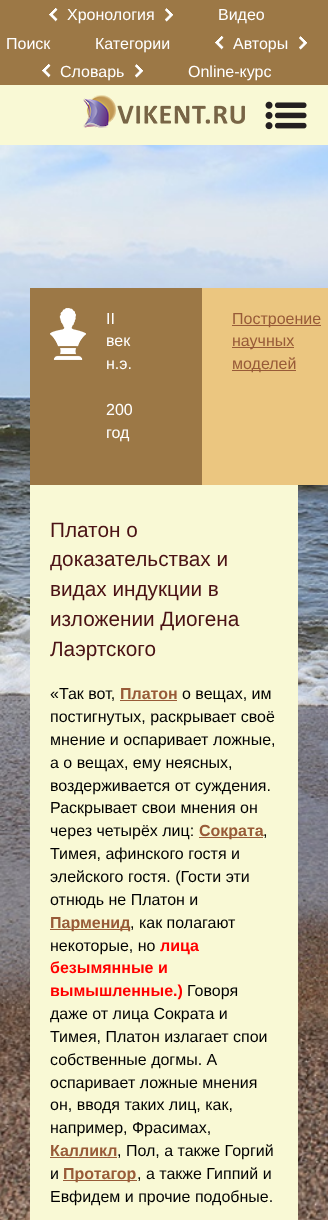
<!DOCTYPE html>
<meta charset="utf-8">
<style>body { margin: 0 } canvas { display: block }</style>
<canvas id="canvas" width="328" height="1220"></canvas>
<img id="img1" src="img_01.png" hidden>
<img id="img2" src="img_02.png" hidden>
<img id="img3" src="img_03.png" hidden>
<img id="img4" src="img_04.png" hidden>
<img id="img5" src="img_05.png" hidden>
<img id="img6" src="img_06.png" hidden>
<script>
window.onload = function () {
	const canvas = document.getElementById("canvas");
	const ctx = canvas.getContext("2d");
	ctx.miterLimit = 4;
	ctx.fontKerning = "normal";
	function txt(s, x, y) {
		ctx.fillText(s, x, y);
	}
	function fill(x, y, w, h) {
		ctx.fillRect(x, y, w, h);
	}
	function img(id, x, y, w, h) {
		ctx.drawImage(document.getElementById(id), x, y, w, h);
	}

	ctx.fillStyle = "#FFFFFF";
	fill(0, 0, 328, 1220);
	img("img1", 0, 145, 328, 1075);
	ctx.fillStyle = "#9C7846";
	fill(0, 0, 328, 85);
	img("img2", 49, 8, 9, 14);
	img("img3", 165, 8, 8, 14);
	img("img2", 215, 36, 9, 14);
	img("img3", 299, 36, 8, 14);
	img("img2", 42, 64, 9, 14);
	img("img3", 135, 64, 8, 14);
	ctx.fillStyle = "#F9F9D5";
	fill(0, 85, 328, 60);
	img("img4", 83, 95, 162, 33);
	img("img5", 265, 101, 42, 29);
	fill(30, 485, 268, 735);
	ctx.fillStyle = "#9C7846";
	fill(30, 288, 172, 197);
	img("img6", 50, 308, 36, 52);
	ctx.fillStyle = "#EBC680";
	fill(202, 288, 126, 197);
	ctx.fillStyle = "#985B38";
	fill(232, 325, 89, 1);
	fill(232, 347, 62, 1);
	fill(232, 370, 64, 1);
	fill(120, 700, 57, 1);
	fill(199, 837, 64, 1);
	fill(50, 929, 80, 1);
	fill(50, 1157, 67, 1);
	fill(63, 1180, 74, 1);
	ctx.font = "16px Liberation Sans";
	ctx.fillStyle = "#FFFFFF";
	txt("Хронология", 67, 20);
	txt("Видео", 218, 20);
	txt("Поиск", 6, 49);
	txt("Категории", 95, 49);
	txt("Авторы", 233, 49);
	txt("Словарь", 60, 77);
	txt("Online-курс", 188, 77);
	txt("II", 106, 324);
	txt("век", 106, 346);
	txt("н.э.", 106, 369);
	txt("200", 106, 415);
	txt("год", 106, 438);
	ctx.fillStyle = "#985B38";
	txt("Построение", 232, 324);
	txt("научных", 232, 346);
	txt("моделей", 232, 369);
	ctx.font = "20.75px Liberation Sans";
	ctx.fillStyle = "#4A1215";
	txt("Платон о", 50, 537);
	txt("доказательствах и", 50, 566);
	txt("видах индукции в", 50, 596);
	txt("изложении Диогена", 50, 626);
	txt("Лаэртского", 50, 656);
	ctx.font = "16px Liberation Sans";
	ctx.fillStyle = "#000000";
	txt("«Так вот,", 50, 699);
	ctx.font = "bold 16px Liberation Sans";
	ctx.fillStyle = "#985B38";
	txt("Платон", 120, 699);
	ctx.font = "16px Liberation Sans";
	ctx.fillStyle = "#000000";
	txt("о вещах, им", 182, 699);
	txt("постигнутых, раскрывает своё", 50, 722);
	txt("мнение и оспаривает ложные,", 50, 745);
	txt("а о вещах, ему неясных,", 50, 768);
	txt("воздерживается от суждения.", 50, 791);
	txt("Раскрывает свои мнения он", 50, 813);
	txt("через четырёх лиц:", 50, 836);
	ctx.font = "bold 16px Liberation Sans";
	ctx.fillStyle = "#985B38";
	txt("Сократа", 199, 836);
	ctx.font = "16px Liberation Sans";
	ctx.fillStyle = "#000000";
	txt(",", 263, 836);
	txt("Тимея, афинского гостя и", 50, 859);
	txt("элейского гостя. (Гости эти", 50, 882);
	txt("отнюдь не Платон и", 50, 905);
	ctx.font = "bold 16px Liberation Sans";
	ctx.fillStyle = "#985B38";
	txt("Парменид", 50, 928);
	ctx.font = "16px Liberation Sans";
	ctx.fillStyle = "#000000";
	txt(", как полагают", 130, 928);
	txt("некоторые, но", 50, 951);
	ctx.font = "bold 16px Liberation Sans";
	ctx.fillStyle = "#FF0000";
	txt("лица", 160, 951);
	txt("безымянные и", 50, 973);
	txt("вымышленные.)", 50, 996);
	ctx.font = "16px Liberation Sans";
	ctx.fillStyle = "#000000";
	txt("Говоря", 187, 996);
	txt("даже от лица Сократа и", 50, 1019);
	txt("Тимея, Платон излагает спои", 50, 1042);
	txt("собственные догмы. А", 50, 1065);
	txt("оспаривает ложные мнения", 50, 1088);
	txt("он, вводя таких лиц, как,", 50, 1110);
	txt("например, Фрасимах,", 50, 1133);
	ctx.font = "bold 16px Liberation Sans";
	ctx.fillStyle = "#985B38";
	txt("Калликл", 50, 1156);
	ctx.font = "16px Liberation Sans";
	ctx.fillStyle = "#000000";
	txt(", Пол, а также Горгий", 117, 1156);
	txt("и", 50, 1179);
	ctx.font = "bold 16px Liberation Sans";
	ctx.fillStyle = "#985B38";
	txt("Протагор", 63, 1179);
	ctx.font = "16px Liberation Sans";
	ctx.fillStyle = "#000000";
	txt(", а также Гиппий и", 137, 1179);
	txt("Евфидем и прочие подобные.", 50, 1202);
};
</script>
